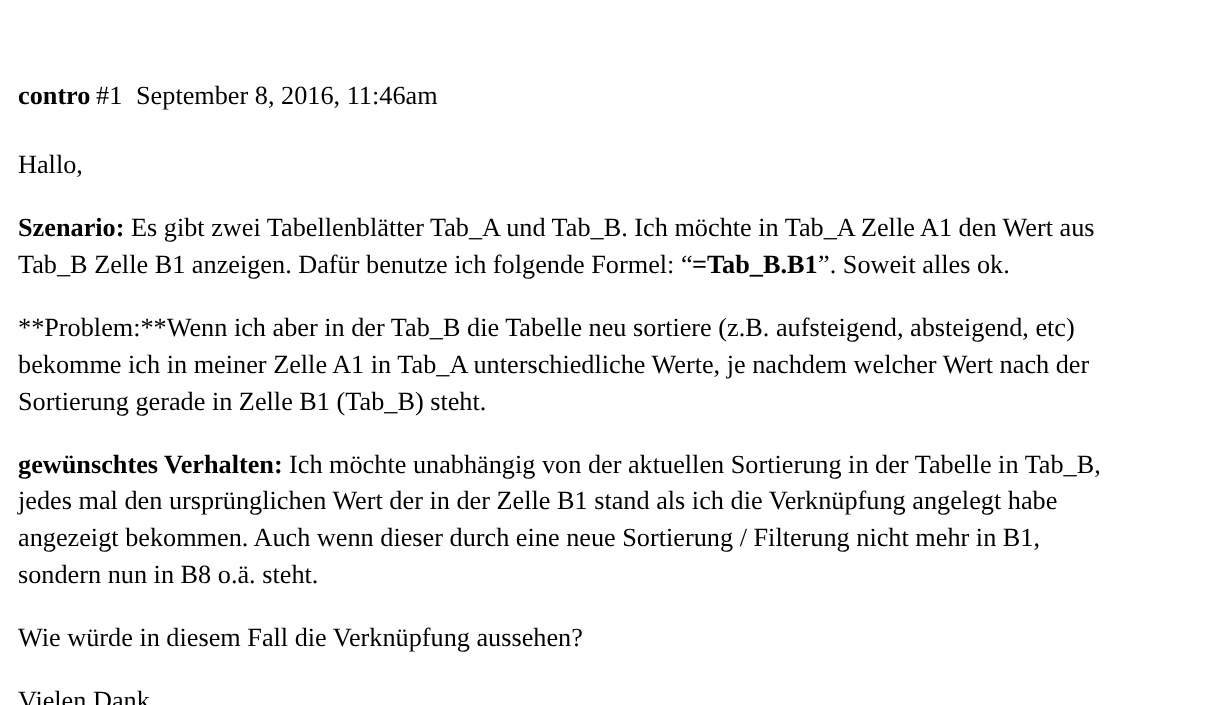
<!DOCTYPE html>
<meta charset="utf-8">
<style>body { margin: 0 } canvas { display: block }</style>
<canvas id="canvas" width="1208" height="705"></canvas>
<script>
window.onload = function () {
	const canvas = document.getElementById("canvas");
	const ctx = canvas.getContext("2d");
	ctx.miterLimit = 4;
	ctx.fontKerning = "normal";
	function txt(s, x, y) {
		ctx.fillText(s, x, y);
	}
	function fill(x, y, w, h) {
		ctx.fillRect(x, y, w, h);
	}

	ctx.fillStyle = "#FFFFFF";
	fill(0, 0, 1208, 705);
	ctx.font = "bold 26.25px Liberation Serif";
	ctx.fillStyle = "#000000";
	txt("contro", 18, 104);
	ctx.font = "26.25px Liberation Serif";
	txt("#1", 96, 104);
	txt("September 8, 2016, 11:46am", 136, 104);
	txt("Hallo,", 18, 173);
	ctx.font = "bold 26.25px Liberation Serif";
	txt("Szenario:", 18, 236);
	ctx.font = "26.25px Liberation Serif";
	txt("Es gibt zwei Tabellenblätter Tab_A und Tab_B. Ich möchte in Tab_A Zelle A1 den Wert aus", 131, 236);
	txt("Tab_B Zelle B1 anzeigen. Dafür benutze ich folgende Formel: “", 18, 273);
	ctx.font = "bold 26.25px Liberation Serif";
	txt("=Tab_B.B1", 692, 273);
	ctx.font = "26.25px Liberation Serif";
	txt("”. Soweit alles ok.", 818, 273);
	txt("**Problem:**Wenn ich aber in der Tab_B die Tabelle neu sortiere (z.B. aufsteigend, absteigend, etc)", 18, 336);
	txt("bekomme ich in meiner Zelle A1 in Tab_A unterschiedliche Werte, je nachdem welcher Wert nach der", 18, 373);
	txt("Sortierung gerade in Zelle B1 (Tab_B) steht.", 18, 410);
	ctx.font = "bold 26.25px Liberation Serif";
	txt("gewünschtes Verhalten:", 18, 473);
	ctx.font = "26.25px Liberation Serif";
	txt("Ich möchte unabhängig von der aktuellen Sortierung in der Tabelle in Tab_B,", 289, 473);
	txt("jedes mal den ursprünglichen Wert der in der Zelle B1 stand als ich die Verknüpfung angelegt habe", 18, 509);
	txt("angezeigt bekommen. Auch wenn dieser durch eine neue Sortierung / Filterung nicht mehr in B1,", 18, 546);
	txt("sondern nun in B8 o.ä. steht.", 18, 583);
	txt("Wie würde in diesem Fall die Verknüpfung aussehen?", 18, 646);
	txt("Vielen Dank", 18, 709);
};
</script>
